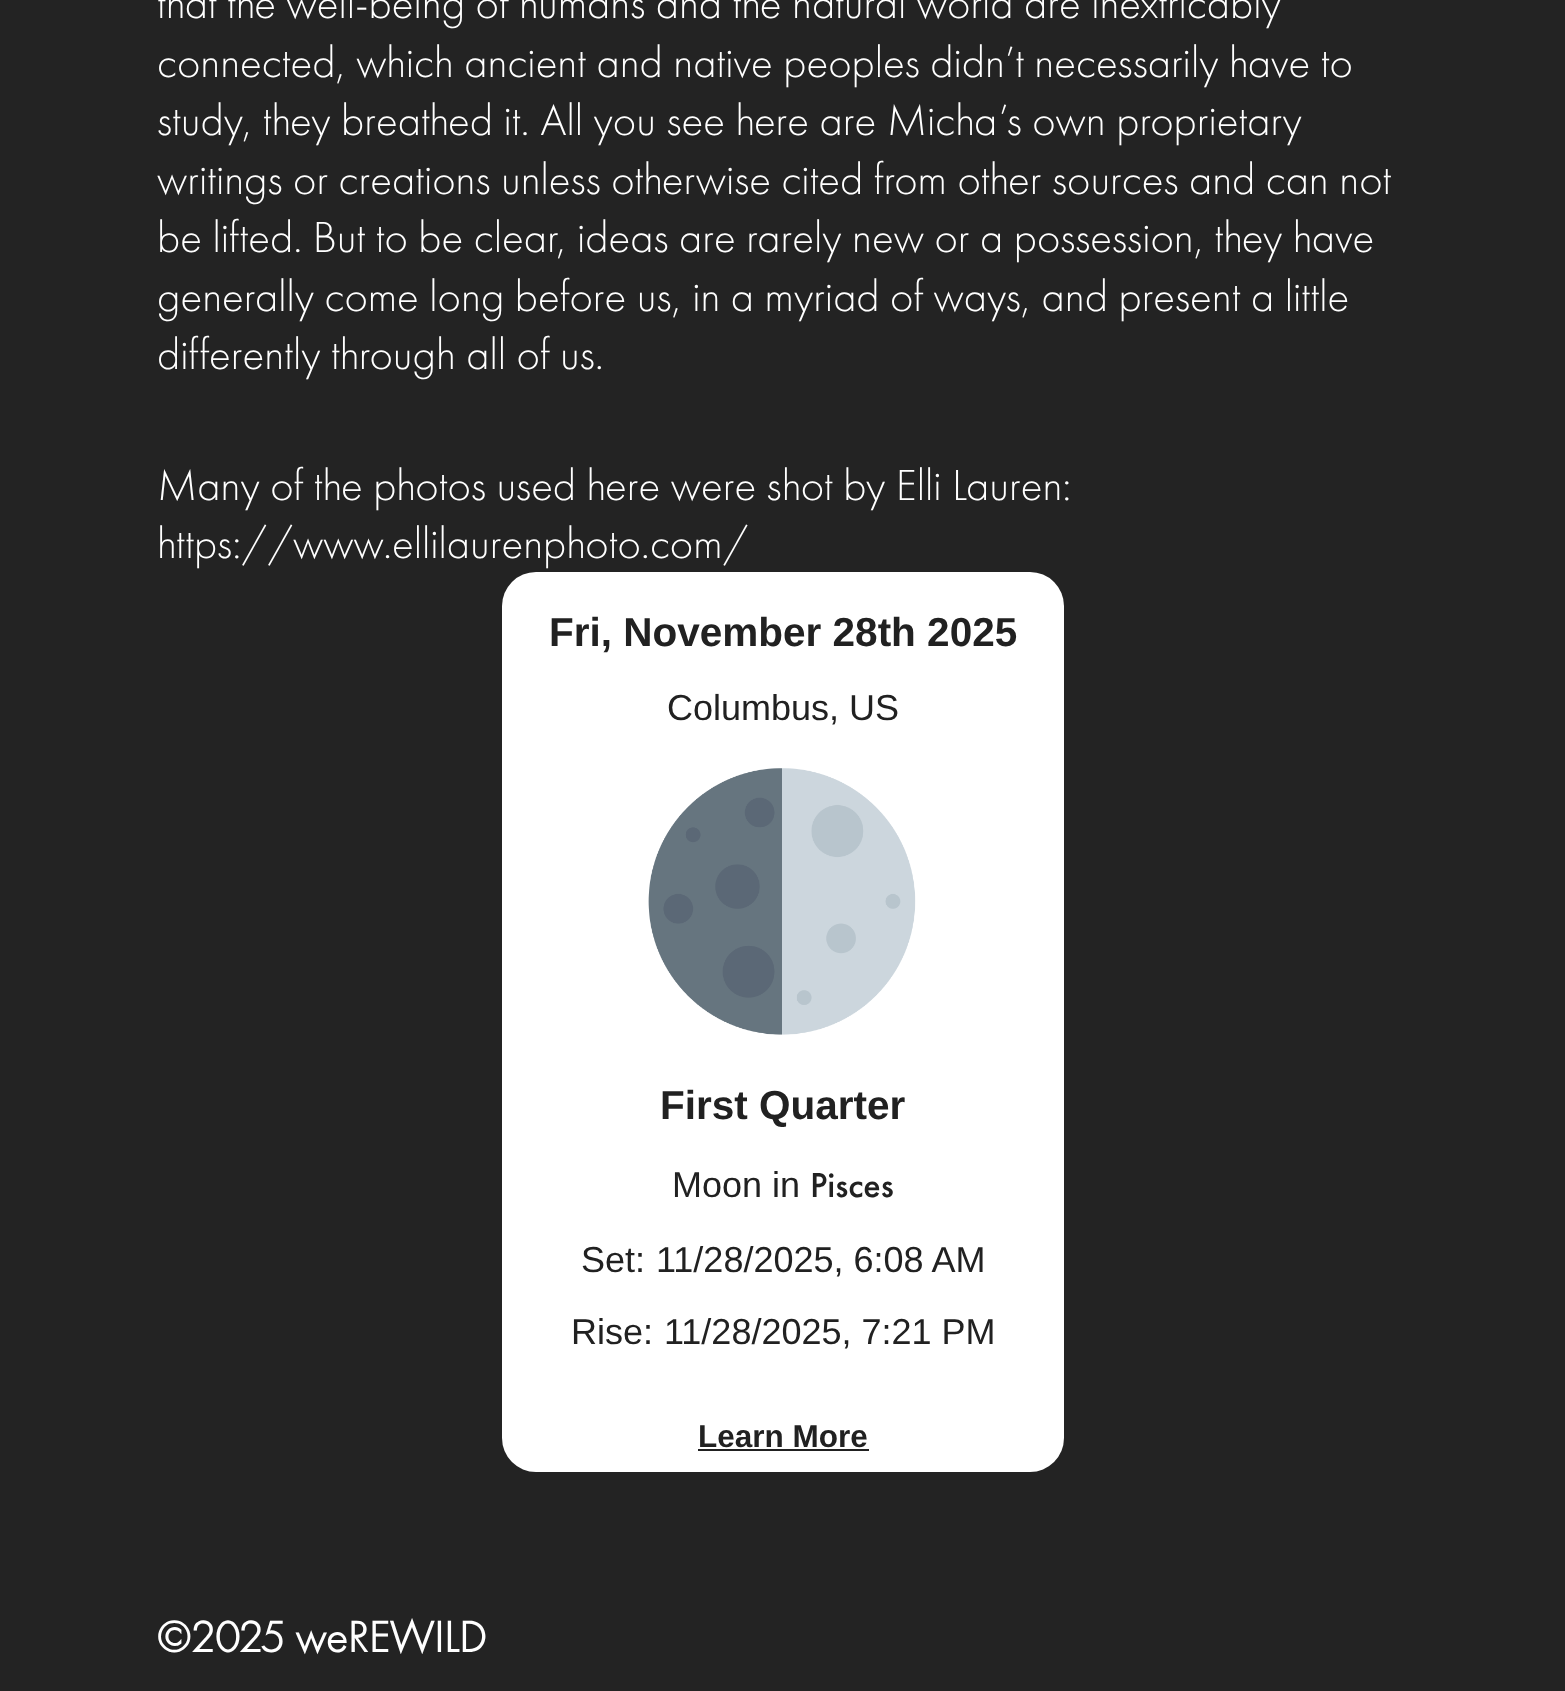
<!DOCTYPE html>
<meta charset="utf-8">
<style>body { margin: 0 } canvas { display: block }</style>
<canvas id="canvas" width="1565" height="1691"></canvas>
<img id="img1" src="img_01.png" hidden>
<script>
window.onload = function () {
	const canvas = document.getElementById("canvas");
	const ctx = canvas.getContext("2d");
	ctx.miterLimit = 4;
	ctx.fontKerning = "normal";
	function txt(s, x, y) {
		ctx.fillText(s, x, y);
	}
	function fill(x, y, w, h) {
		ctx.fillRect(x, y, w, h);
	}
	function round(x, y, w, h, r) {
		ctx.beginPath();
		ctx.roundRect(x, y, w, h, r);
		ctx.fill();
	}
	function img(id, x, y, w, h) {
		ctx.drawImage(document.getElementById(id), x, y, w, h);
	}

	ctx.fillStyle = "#232323";
	fill(0, 0, 1565, 1691);
	ctx.fillStyle = "#FFFFFF";
	round(502, 572, 562, 900, 34);
	img("img1", 648, 768, 268, 267);
	ctx.fillStyle = "#212121";
	fill(698, 1449, 171, 2);
	ctx.font = "300 45px Futura PT";
	ctx.fillStyle = "#FFFFFF";
	txt("that the well-being of humans and the natural world are inextricably", 157, 18);
	txt("connected, which ancient and native peoples didn’t necessarily have to", 157, 77);
	txt("study, they breathed it. All you see here are Micha’s own proprietary", 157, 135);
	txt("writings or creations unless otherwise cited from other sources and can not", 157, 194);
	txt("be lifted. But to be clear, ideas are rarely new or a possession, they have", 157, 252);
	txt("generally come long before us, in a myriad of ways, and present a little", 157, 311);
	txt("differently through all of us.", 157, 369);
	txt("Many of the photos used here were shot by Elli Lauren:", 157, 500);
	txt("https://www.ellilaurenphoto.com/", 157, 558);
	ctx.font = "bold 40.5px Liberation Sans";
	ctx.fillStyle = "#212121";
	txt("Fri, November 28th 2025", 549, 646);
	ctx.font = "36px Liberation Sans";
	txt("Columbus, US", 667, 720);
	ctx.font = "bold 40.5px Liberation Sans";
	txt("First Quarter", 660, 1119);
	ctx.font = "36px Liberation Sans";
	txt("Moon in", 672, 1197);
	ctx.font = "500 36px Futura PT";
	txt("Pisces", 810, 1197);
	ctx.font = "36px Liberation Sans";
	txt("Set:", 581, 1272);
	txt("11/28/2025, 6:08 AM", 656, 1272);
	txt("Rise:", 571, 1344);
	txt("11/28/2025, 7:21 PM", 664, 1344);
	ctx.font = "bold 31.5px Liberation Sans";
	txt("Learn More", 698, 1447);
	ctx.font = "bold 45px Futura PT";
	ctx.fillStyle = "#FFFFFF";
	txt("©2025 weREWILD", 157, 1652);
};
</script>
